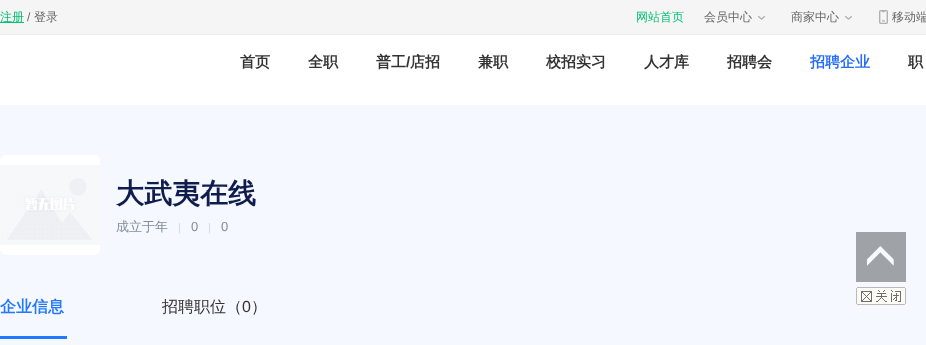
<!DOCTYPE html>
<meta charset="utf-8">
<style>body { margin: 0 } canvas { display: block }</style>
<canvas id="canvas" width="926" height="345"></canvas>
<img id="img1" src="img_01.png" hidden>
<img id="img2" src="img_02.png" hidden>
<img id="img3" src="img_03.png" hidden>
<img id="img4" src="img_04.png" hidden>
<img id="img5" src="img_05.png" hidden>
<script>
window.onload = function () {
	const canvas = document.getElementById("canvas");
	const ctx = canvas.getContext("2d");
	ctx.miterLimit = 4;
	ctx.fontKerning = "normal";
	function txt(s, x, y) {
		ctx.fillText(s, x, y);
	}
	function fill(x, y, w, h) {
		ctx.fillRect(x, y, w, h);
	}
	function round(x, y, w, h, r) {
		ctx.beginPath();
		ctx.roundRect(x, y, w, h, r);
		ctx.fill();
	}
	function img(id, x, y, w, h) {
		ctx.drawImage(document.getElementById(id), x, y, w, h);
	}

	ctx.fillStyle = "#FFFFFF";
	fill(0, 0, 926, 345);
	ctx.fillStyle = "#F5F5F5";
	fill(0, 0, 926, 34);
	ctx.fillStyle = "#EEEEEE";
	fill(0, 34, 926, 1);
	ctx.fillStyle = "#07BF77";
	fill(0, 22, 24, 1);
	img("img1", 758, 16, 7, 4);
	img("img1", 845, 16, 7, 4);
	img("img2", 879, 10, 9, 14);
	ctx.fillStyle = "#F5F9FF";
	fill(0, 105, 926, 240);
	ctx.fillStyle = "#FFFFFF";
	round(0, 155, 100, 100, 6);
	img("img3", 0, 165, 100, 80);
	ctx.fillStyle = "#2278FF";
	fill(0, 336, 67, 3);
	img("img4", 856, 232, 50, 50);
	img("img5", 856, 287, 50, 18);
	ctx.font = "500 12px WenQuanYi Zen Hei";
	ctx.fillStyle = "#07BF77";
	txt("注册", 0, 21);
	ctx.font = "12px Liberation Sans";
	ctx.fillStyle = "#6C6C6C";
	txt("/", 27, 21);
	ctx.font = "500 12px WenQuanYi Zen Hei";
	ctx.fillStyle = "#666666";
	txt("登录", 34, 21);
	ctx.fillStyle = "#07BF77";
	txt("网站首页", 636, 21);
	ctx.fillStyle = "#666666";
	txt("会员中心", 704, 21);
	txt("商家中心", 791, 21);
	txt("移动端", 892, 21);
	ctx.font = "bold 15px WenQuanYi Zen Hei";
	ctx.fillStyle = "#333333";
	txt("首页", 240, 67);
	txt("全职", 308, 67);
	txt("普工", 376, 67);
	ctx.font = "bold 15px Liberation Sans";
	txt("/", 406, 67);
	ctx.font = "bold 15px WenQuanYi Zen Hei";
	txt("店招", 410, 67);
	txt("兼职", 478, 67);
	txt("校招实习", 546, 67);
	txt("人才库", 644, 67);
	txt("招聘会", 727, 67);
	ctx.fillStyle = "#256CFA";
	txt("招聘企业", 810, 67);
	ctx.fillStyle = "#333333";
	txt("职", 908, 67);
	ctx.font = "bold 28px WenQuanYi Zen Hei";
	ctx.fillStyle = "#0F1C4D";
	txt("大武夷在线", 116, 203);
	ctx.font = "500 13px WenQuanYi Zen Hei";
	ctx.fillStyle = "#828B99";
	txt("成立于年", 116, 231);
	ctx.font = "11px Liberation Sans";
	ctx.fillStyle = "#CFD8E6";
	txt("|", 178, 231);
	ctx.font = "13px Liberation Sans";
	ctx.fillStyle = "#828B99";
	txt("0", 191, 231);
	ctx.font = "11px Liberation Sans";
	ctx.fillStyle = "#CFD8E6";
	txt("|", 208, 231);
	ctx.font = "13px Liberation Sans";
	ctx.fillStyle = "#828B99";
	txt("0", 221, 231);
	ctx.font = "bold 16px WenQuanYi Zen Hei";
	ctx.fillStyle = "#2278FF";
	txt("企业信息", 0, 312);
	ctx.font = "500 16px WenQuanYi Zen Hei";
	ctx.fillStyle = "#333333";
	txt("招聘职位（", 162, 312);
	ctx.font = "16px Liberation Sans";
	txt("0", 242, 312);
	ctx.font = "500 16px WenQuanYi Zen Hei";
	txt("）", 251, 312);
};
</script>
